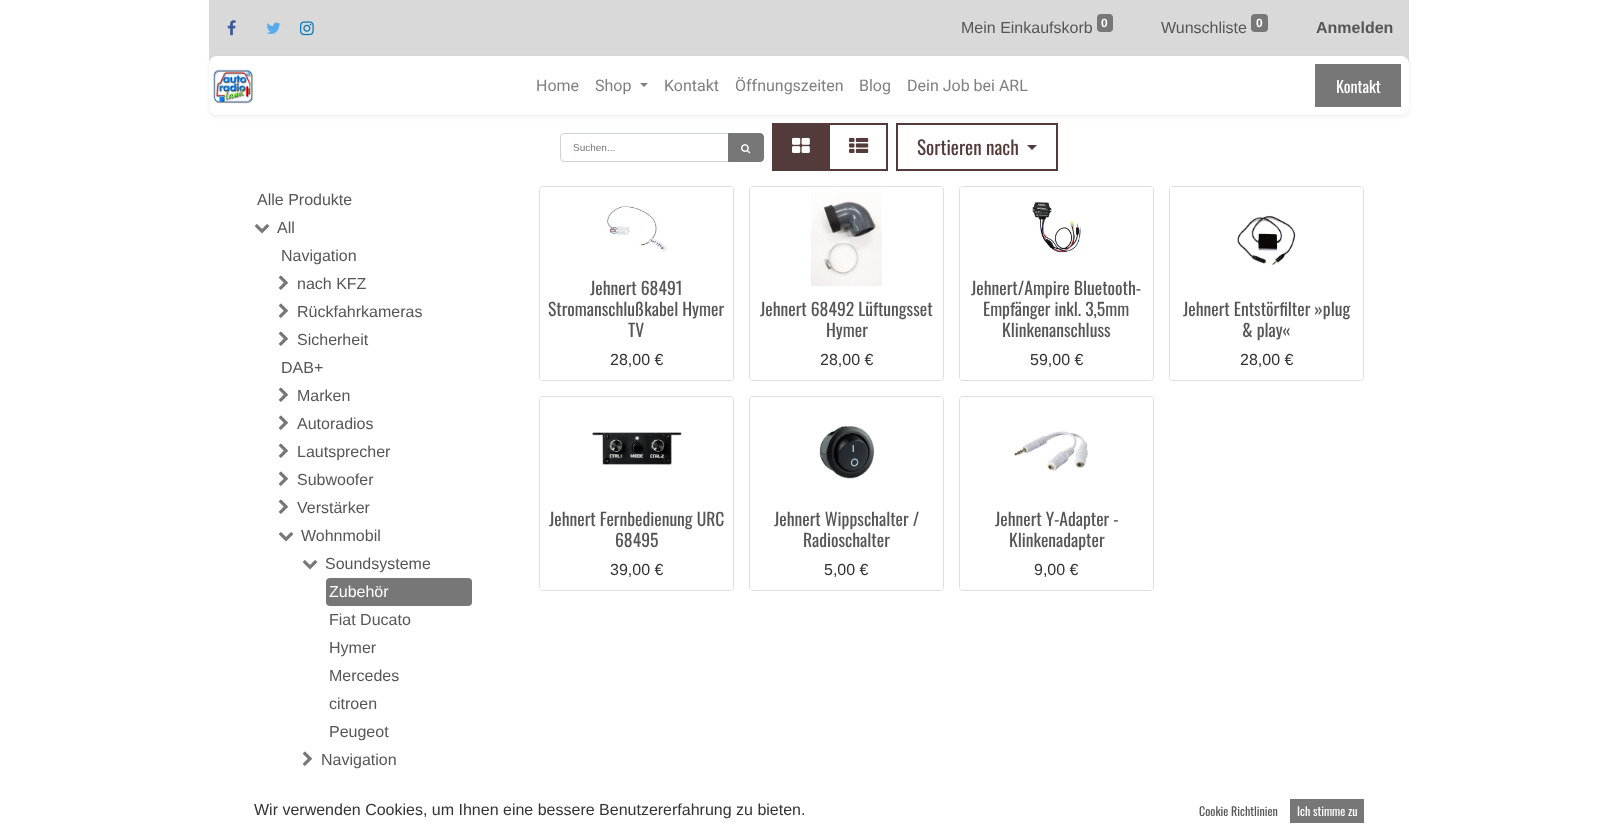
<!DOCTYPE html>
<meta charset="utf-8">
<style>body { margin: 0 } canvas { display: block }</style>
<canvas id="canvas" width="1618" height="838"></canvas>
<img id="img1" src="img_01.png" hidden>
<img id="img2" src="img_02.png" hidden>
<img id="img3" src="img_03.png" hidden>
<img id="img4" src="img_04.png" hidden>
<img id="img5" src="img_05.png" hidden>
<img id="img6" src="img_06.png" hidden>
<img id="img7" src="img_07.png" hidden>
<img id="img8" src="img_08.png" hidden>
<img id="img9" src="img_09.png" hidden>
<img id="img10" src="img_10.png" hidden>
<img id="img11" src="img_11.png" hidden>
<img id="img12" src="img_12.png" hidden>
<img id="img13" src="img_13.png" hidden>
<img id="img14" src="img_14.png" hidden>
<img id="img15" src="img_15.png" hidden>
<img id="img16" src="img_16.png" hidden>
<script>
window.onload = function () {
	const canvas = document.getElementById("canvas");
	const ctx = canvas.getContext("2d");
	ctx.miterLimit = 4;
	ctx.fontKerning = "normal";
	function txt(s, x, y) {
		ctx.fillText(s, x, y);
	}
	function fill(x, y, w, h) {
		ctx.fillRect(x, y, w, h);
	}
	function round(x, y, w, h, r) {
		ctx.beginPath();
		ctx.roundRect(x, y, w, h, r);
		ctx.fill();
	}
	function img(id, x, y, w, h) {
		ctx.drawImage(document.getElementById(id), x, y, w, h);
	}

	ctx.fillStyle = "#FFFFFF";
	fill(0, 0, 1618, 838);
	ctx.fillStyle = "#D9D9D9";
	fill(209, 0, 1200, 64);
	img("img1", 227, 20, 9, 16);
	img("img2", 266, 22, 15, 12);
	img("img3", 300, 21, 14, 15);
	ctx.fillStyle = "#777777";
	round(1097, 14, 16, 18, 4);
	round(1251, 14, 17, 18, 4);
	ctx.beginPath();
	ctx.rect(829, 124, 58, 46);
	ctx.strokeStyle = "#543B3B";
	ctx.lineWidth = 2;
	ctx.stroke();
	ctx.fillStyle = "#543B3B";
	ctx.beginPath();
	ctx.rect(773, 124, 56, 46);
	ctx.fill();
	ctx.stroke();
	ctx.beginPath();
	ctx.rect(897, 124, 160, 46);
	ctx.stroke();
	ctx.fillStyle = "rgba(0, 0, 0, 0.07)";
	ctx.filter = "blur(2px)";
	ctx.beginPath();
	ctx.roundRect(209, 58, 1200, 59, 8);
	ctx.fill();
	ctx.filter = "none";
	ctx.fillStyle = "#FFFFFF";
	round(209, 56, 1200, 59, 8);
	img("img4", 213, 69, 40, 35);
	ctx.fillStyle = "#808080";
	ctx.beginPath();
	ctx.moveTo(640, 83);
	ctx.lineTo(648, 83);
	ctx.lineTo(644, 87);
	ctx.closePath();
	ctx.fill();
	ctx.fillStyle = "#777777";
	ctx.beginPath();
	ctx.rect(1316, 65, 84, 41);
	ctx.fill();
	ctx.strokeStyle = "#777777";
	ctx.stroke();
	ctx.beginPath();
	ctx.roundRect(560.5, 133.5, 168, 28, [3.5, 0, 0, 3.5]);
	ctx.strokeStyle = "#CED4DA";
	ctx.lineWidth = 1;
	ctx.stroke();
	ctx.beginPath();
	ctx.roundRect(728.5, 133.5, 35, 28, [0, 3.5, 3.5, 0]);
	ctx.fill();
	ctx.strokeStyle = "#777777";
	ctx.stroke();
	img("img5", 741, 144, 10, 10);
	img("img6", 792, 137, 18, 16);
	img("img7", 849, 137, 20, 16);
	ctx.fillStyle = "#543B3B";
	ctx.beginPath();
	ctx.moveTo(1027, 145);
	ctx.lineTo(1037, 145);
	ctx.lineTo(1032, 150);
	ctx.closePath();
	ctx.fill();
	img("img8", 254, 224, 16, 10);
	img("img9", 278, 275, 10, 15);
	img("img9", 278, 303, 10, 15);
	img("img9", 278, 331, 10, 15);
	img("img9", 278, 387, 10, 15);
	img("img9", 278, 415, 10, 15);
	img("img9", 278, 443, 10, 15);
	img("img9", 278, 471, 10, 15);
	img("img9", 278, 499, 10, 15);
	img("img8", 278, 532, 16, 10);
	img("img8", 302, 560, 16, 10);
	ctx.fillStyle = "#777777";
	round(326, 578, 146, 28, 4);
	img("img9", 302, 751, 10, 15);
	ctx.beginPath();
	ctx.roundRect(539.5, 186.5, 194, 194, 3.5);
	ctx.strokeStyle = "#DFDFDF";
	ctx.stroke();
	ctx.fillStyle = "rgba(255, 255, 255, 0.9)";
	ctx.beginPath();
	ctx.roundRect(540, 187, 193, 82, [3, 3, 0, 0]);
	ctx.fill();
	img("img10", 607, 206, 60, 46);
	ctx.beginPath();
	ctx.roundRect(540, 269, 193, 111, [0, 0, 3, 3]);
	ctx.fill();
	ctx.beginPath();
	ctx.roundRect(749.5, 186.5, 194, 194, 3.5);
	ctx.stroke();
	ctx.beginPath();
	ctx.roundRect(750, 187, 193, 103, [3, 3, 0, 0]);
	ctx.fill();
	img("img11", 811, 191, 71, 95);
	ctx.beginPath();
	ctx.roundRect(750, 290, 193, 90, [0, 0, 3, 3]);
	ctx.fill();
	ctx.beginPath();
	ctx.roundRect(959.5, 186.5, 194, 194, 3.5);
	ctx.stroke();
	ctx.beginPath();
	ctx.roundRect(960, 187, 193, 82, [3, 3, 0, 0]);
	ctx.fill();
	img("img12", 1032, 202, 51, 53);
	ctx.beginPath();
	ctx.roundRect(960, 269, 193, 111, [0, 0, 3, 3]);
	ctx.fill();
	ctx.beginPath();
	ctx.roundRect(1169.5, 186.5, 194, 194, 3.5);
	ctx.stroke();
	ctx.beginPath();
	ctx.roundRect(1170, 187, 193, 103, [3, 3, 0, 0]);
	ctx.fill();
	img("img13", 1237, 215, 59, 51);
	ctx.beginPath();
	ctx.roundRect(1170, 290, 193, 90, [0, 0, 3, 3]);
	ctx.fill();
	ctx.beginPath();
	ctx.roundRect(539.5, 396.5, 194, 194, 3.5);
	ctx.stroke();
	ctx.beginPath();
	ctx.roundRect(540, 397, 193, 103, [3, 3, 0, 0]);
	ctx.fill();
	img("img14", 592, 432, 90, 33);
	ctx.beginPath();
	ctx.roundRect(540, 500, 193, 90, [0, 0, 3, 3]);
	ctx.fill();
	ctx.beginPath();
	ctx.roundRect(749.5, 396.5, 194, 194, 3.5);
	ctx.stroke();
	ctx.beginPath();
	ctx.roundRect(750, 397, 193, 103, [3, 3, 0, 0]);
	ctx.fill();
	img("img15", 819, 426, 56, 54);
	ctx.beginPath();
	ctx.roundRect(750, 500, 193, 90, [0, 0, 3, 3]);
	ctx.fill();
	ctx.beginPath();
	ctx.roundRect(959.5, 396.5, 194, 194, 3.5);
	ctx.stroke();
	ctx.beginPath();
	ctx.roundRect(960, 397, 193, 103, [3, 3, 0, 0]);
	ctx.fill();
	img("img16", 1014, 431, 74, 40);
	ctx.beginPath();
	ctx.roundRect(960, 500, 193, 90, [0, 0, 3, 3]);
	ctx.fill();
	ctx.fillStyle = "#777777";
	fill(1290, 799, 74, 24);
	ctx.font = "16px Liberation Sans";
	ctx.fillStyle = "#565656";
	txt("Mein Einkaufskorb", 961, 33);
	ctx.font = "bold 12px Liberation Sans";
	ctx.fillStyle = "#FFFFFF";
	txt("0", 1101, 27);
	ctx.font = "16px Liberation Sans";
	ctx.fillStyle = "#565656";
	txt("Wunschliste", 1161, 33);
	ctx.font = "bold 12px Liberation Sans";
	ctx.fillStyle = "#FFFFFF";
	txt("0", 1256, 27);
	ctx.font = "bold 16px Liberation Sans";
	ctx.fillStyle = "#565656";
	txt("Anmelden", 1316, 33);
	ctx.font = "16px Roboto";
	ctx.fillStyle = "#808080";
	txt("Home", 536, 91);
	txt("Shop", 595, 91);
	txt("Kontakt", 664, 91);
	txt("Öffnungszeiten", 735, 91);
	txt("Blog", 859, 91);
	txt("Dein Job bei ARL", 907, 91);
	ctx.font = "16px Oswald";
	ctx.fillStyle = "#FFFFFF";
	txt("Kontakt", 1336, 93);
	ctx.font = "10px Liberation Sans";
	ctx.fillStyle = "#777777";
	txt("Suchen...", 573, 151);
	ctx.font = "19.25px Oswald";
	ctx.fillStyle = "#543B3B";
	txt("Sortieren nach", 917, 155);
	ctx.font = "16px Liberation Sans";
	ctx.fillStyle = "#565656";
	txt("Alle Produkte", 257, 205);
	txt("All", 277, 233);
	txt("Navigation", 281, 261);
	txt("nach KFZ", 297, 289);
	txt("Rückfahrkameras", 297, 317);
	txt("Sicherheit", 297, 345);
	txt("DAB+", 281, 373);
	txt("Marken", 297, 401);
	txt("Autoradios", 297, 429);
	txt("Lautsprecher", 297, 457);
	txt("Subwoofer", 297, 485);
	txt("Verstärker", 297, 513);
	txt("Wohnmobil", 301, 541);
	txt("Soundsysteme", 325, 569);
	ctx.fillStyle = "#FFFFFF";
	txt("Zubehör", 329, 597);
	ctx.fillStyle = "#565656";
	txt("Fiat Ducato", 329, 625);
	txt("Hymer", 329, 653);
	txt("Mercedes", 329, 681);
	txt("citroen", 329, 709);
	txt("Peugeot", 329, 737);
	txt("Navigation", 321, 765);
	ctx.font = "17.6px Oswald";
	txt("Jehnert 68491", 590, 295);
	txt("Stromanschlußkabel Hymer", 548, 316);
	txt("TV", 628, 337);
	ctx.font = "16px Liberation Sans";
	ctx.fillStyle = "#333333";
	txt("28,00 €", 610, 365);
	ctx.font = "17.6px Oswald";
	ctx.fillStyle = "#565656";
	txt("Jehnert 68492 Lüftungsset", 760, 316);
	txt("Hymer", 826, 337);
	ctx.font = "16px Liberation Sans";
	ctx.fillStyle = "#333333";
	txt("28,00 €", 820, 365);
	ctx.font = "17.6px Oswald";
	ctx.fillStyle = "#565656";
	txt("Jehnert/Ampire Bluetooth-", 971, 295);
	txt("Empfänger inkl. 3,5mm", 983, 316);
	txt("Klinkenanschluss", 1002, 337);
	ctx.font = "16px Liberation Sans";
	ctx.fillStyle = "#333333";
	txt("59,00 €", 1030, 365);
	ctx.font = "17.6px Oswald";
	ctx.fillStyle = "#565656";
	txt("Jehnert Entstörfilter »plug", 1183, 316);
	txt("& play«", 1242, 337);
	ctx.font = "16px Liberation Sans";
	ctx.fillStyle = "#333333";
	txt("28,00 €", 1240, 365);
	ctx.font = "17.6px Oswald";
	ctx.fillStyle = "#565656";
	txt("Jehnert Fernbedienung URC", 549, 526);
	txt("68495", 615, 547);
	ctx.font = "16px Liberation Sans";
	ctx.fillStyle = "#333333";
	txt("39,00 €", 610, 575);
	ctx.font = "17.6px Oswald";
	ctx.fillStyle = "#565656";
	txt("Jehnert Wippschalter /", 774, 526);
	txt("Radioschalter", 803, 547);
	ctx.font = "16px Liberation Sans";
	ctx.fillStyle = "#333333";
	txt("5,00 €", 824, 575);
	ctx.font = "17.6px Oswald";
	ctx.fillStyle = "#565656";
	txt("Jehnert Y-Adapter -", 995, 526);
	txt("Klinkenadapter", 1009, 547);
	ctx.font = "16px Liberation Sans";
	ctx.fillStyle = "#333333";
	txt("9,00 €", 1034, 575);
	txt("Wir verwenden Cookies, um Ihnen eine bessere Benutzererfahrung zu bieten.", 254, 815);
	ctx.font = "12px Oswald";
	ctx.fillStyle = "#565656";
	txt("Cookie Richtlinien", 1199, 816);
	ctx.fillStyle = "#FFFFFF";
	txt("Ich stimme zu", 1297, 816);
};
</script>
